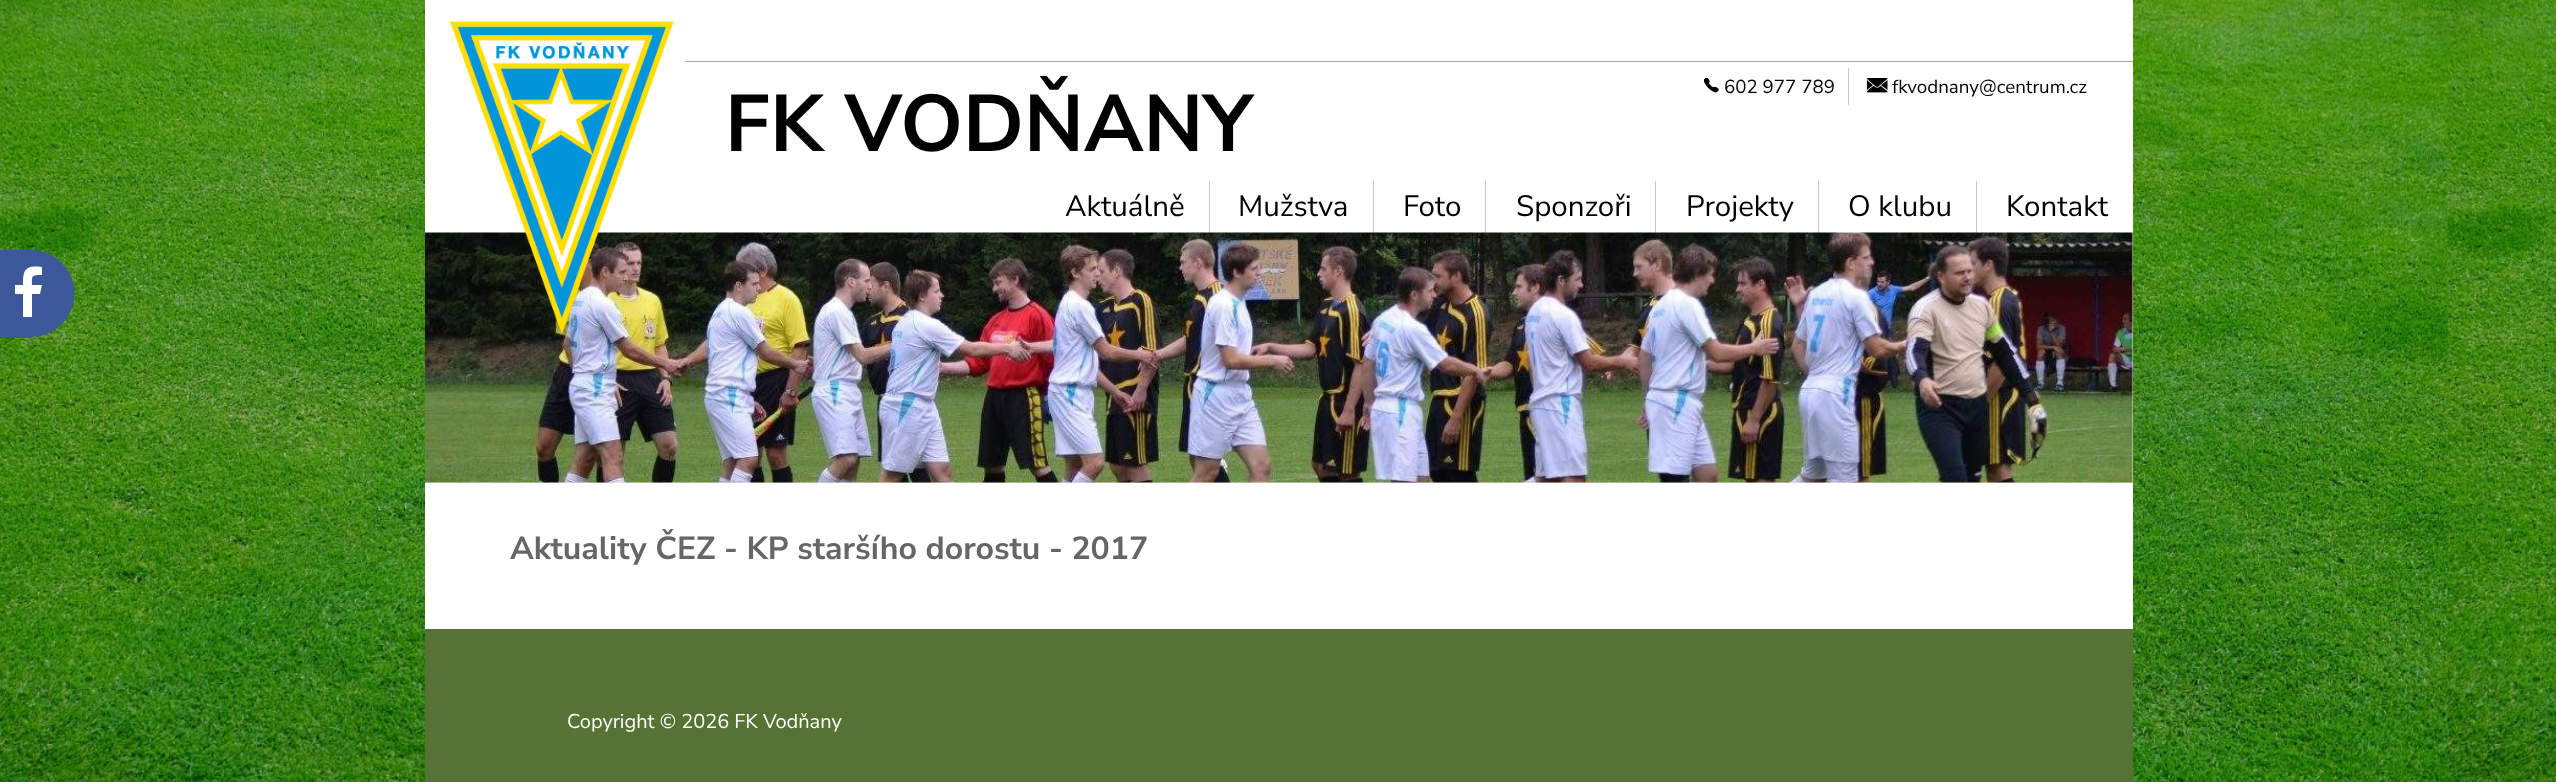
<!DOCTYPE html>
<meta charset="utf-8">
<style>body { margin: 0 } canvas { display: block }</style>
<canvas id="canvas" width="2556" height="782"></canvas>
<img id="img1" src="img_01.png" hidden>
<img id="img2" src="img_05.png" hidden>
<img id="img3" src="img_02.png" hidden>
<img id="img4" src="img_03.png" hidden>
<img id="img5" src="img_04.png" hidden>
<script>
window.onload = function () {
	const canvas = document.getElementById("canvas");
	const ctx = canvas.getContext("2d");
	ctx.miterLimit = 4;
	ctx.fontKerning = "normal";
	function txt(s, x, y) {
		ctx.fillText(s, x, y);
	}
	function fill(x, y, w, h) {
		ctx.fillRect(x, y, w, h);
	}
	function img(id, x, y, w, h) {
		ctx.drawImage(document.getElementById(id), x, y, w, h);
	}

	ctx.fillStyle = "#FFFFFF";
	fill(0, 0, 2556, 782);
	img("img1", 0, 0, 2556, 782);
	ctx.fillStyle = "#3B5998";
	fill(0, 250, 31, 88);
	ctx.beginPath();
	ctx.arc(31, 293.5, 43.5, 0, Math.PI * 2);
	ctx.fill();
	ctx.fillStyle = "#FFFFFF";
	ctx.beginPath();
	ctx.moveTo(23, 317);
	ctx.lineTo(23, 294);
	ctx.lineTo(15, 294);
	ctx.lineTo(15, 285);
	ctx.lineTo(23, 285);
	ctx.bezierCurveTo(23, 270, 25, 265, 42, 267);
	ctx.lineTo(42, 275);
	ctx.bezierCurveTo(31, 275, 32, 276, 32, 285);
	ctx.lineTo(42, 285);
	ctx.lineTo(40, 294);
	ctx.lineTo(32, 294);
	ctx.lineTo(32, 317);
	ctx.closePath();
	ctx.fill();
	fill(425, 0, 1708, 629);
	ctx.fillStyle = "#F1E8CD";
	fill(425, 233, 1708, 250);
	ctx.fillStyle = "#C6C6C6";
	fill(1209, 181, 1, 52);
	fill(1373, 181, 1, 52);
	fill(1485, 181, 1, 52);
	fill(1655, 181, 1, 52);
	fill(1818, 181, 1, 52);
	fill(1976, 181, 1, 52);
	img("img2", 425, 232, 1708, 251);
	img("img3", 450, 21, 224, 313);
	ctx.fillStyle = "#ABA9A9";
	fill(685, 61, 1448, 1);
	img("img4", 1704, 78, 15, 15);
	ctx.fillStyle = "#C6C6C6";
	fill(1848, 68, 1, 37);
	img("img5", 1866, 78, 22, 15);
	ctx.fillStyle = "#567335";
	fill(425, 629, 1708, 153);
	ctx.font = "bold 80px Nunito Sans";
	ctx.fillStyle = "#000000";
	txt("FK VODŇANY", 725, 151);
	ctx.font = "18.75px Nunito Sans";
	txt("602 977 789", 1724, 93);
	txt("fkvodnany@centrum.cz", 1892, 93);
	ctx.font = "29.5px Nunito Sans";
	txt("Aktuálně", 1065, 216);
	txt("Mužstva", 1238, 216);
	txt("Foto", 1403, 216);
	txt("Sponzoři", 1516, 216);
	txt("Projekty", 1686, 216);
	txt("O klubu", 1848, 216);
	txt("Kontakt", 2006, 216);
	ctx.font = "bold 32px Nunito Sans";
	ctx.fillStyle = "#666666";
	txt("Aktuality ČEZ - KP staršího dorostu - 2017", 510, 559);
	ctx.font = "20px Nunito Sans";
	ctx.fillStyle = "#FFFFFF";
	txt("Copyright © 2026 FK Vodňany", 567, 728);
};
</script>
